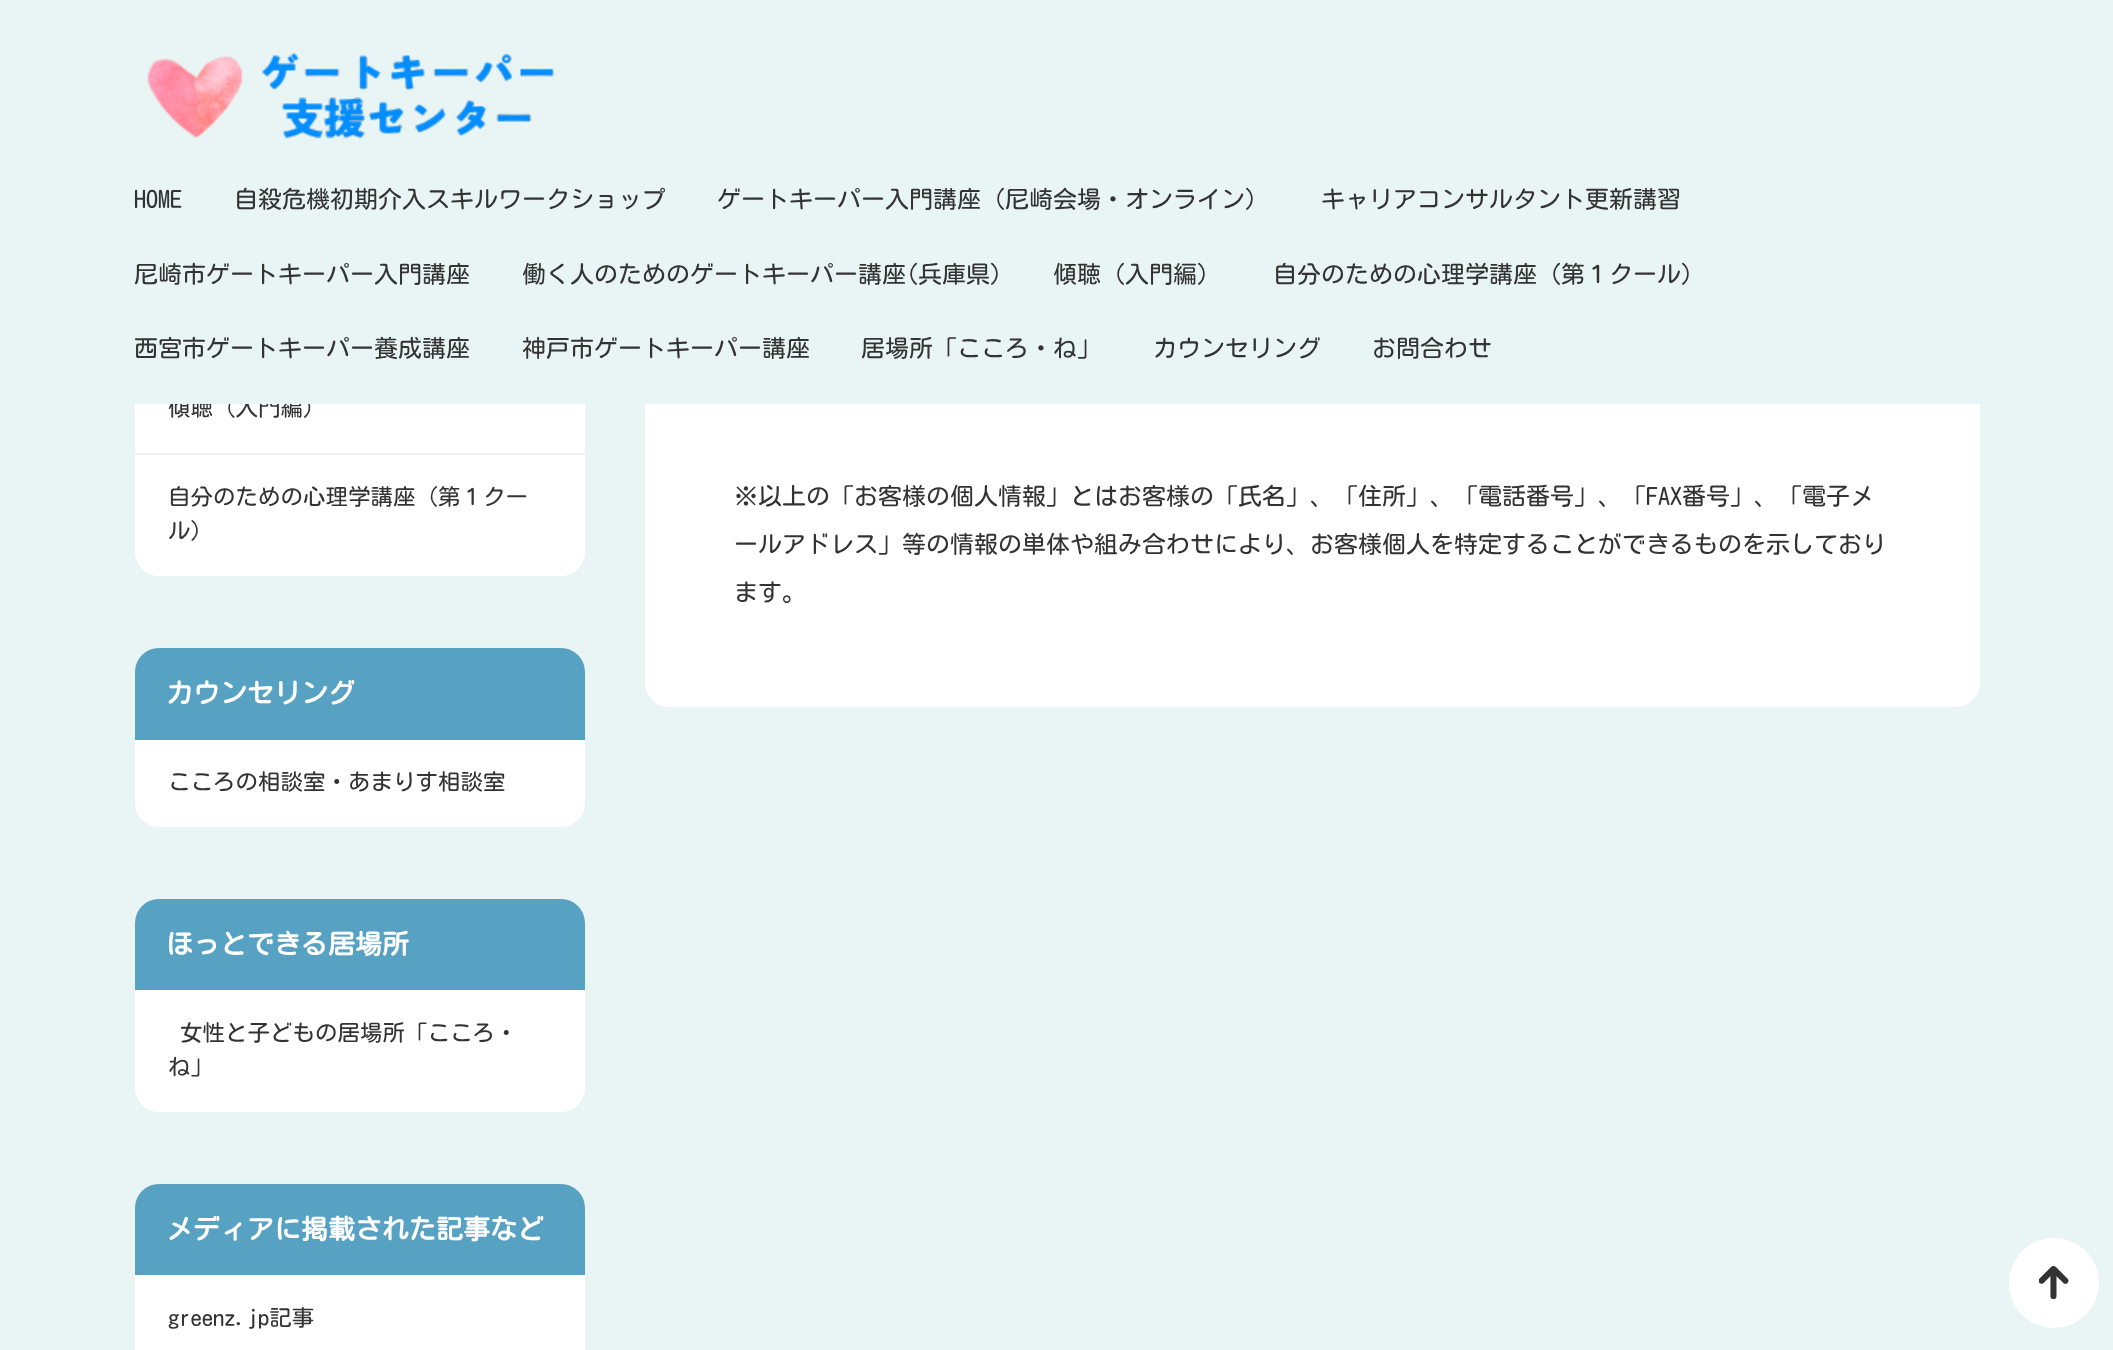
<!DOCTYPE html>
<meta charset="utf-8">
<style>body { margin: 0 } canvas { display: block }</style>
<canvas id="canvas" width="2113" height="1350"></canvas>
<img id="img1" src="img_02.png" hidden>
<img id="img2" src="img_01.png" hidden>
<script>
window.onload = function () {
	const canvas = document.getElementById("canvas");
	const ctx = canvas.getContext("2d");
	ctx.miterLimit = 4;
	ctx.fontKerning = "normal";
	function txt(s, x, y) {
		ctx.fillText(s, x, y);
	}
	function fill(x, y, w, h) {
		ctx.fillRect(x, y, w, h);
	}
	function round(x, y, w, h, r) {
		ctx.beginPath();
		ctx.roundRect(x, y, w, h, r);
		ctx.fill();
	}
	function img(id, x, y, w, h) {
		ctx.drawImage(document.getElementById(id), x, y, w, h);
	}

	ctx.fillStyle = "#E9F5F4";
	fill(0, 0, 2113, 1350);
	ctx.fillStyle = "#FFFFFF";
	ctx.beginPath();
	ctx.roundRect(135, 365, 450, 211, [0, 0, 24, 24]);
	ctx.fill();
	ctx.fillStyle = "#F1F1F1";
	fill(135, 453, 450, 2);
	ctx.fillStyle = "#57A1C2";
	ctx.beginPath();
	ctx.roundRect(135, 648, 450, 92, [24, 24, 0, 0]);
	ctx.fill();
	ctx.fillStyle = "#FFFFFF";
	ctx.beginPath();
	ctx.roundRect(135, 740, 450, 87, [0, 0, 24, 24]);
	ctx.fill();
	ctx.fillStyle = "#57A1C2";
	ctx.beginPath();
	ctx.roundRect(135, 899, 450, 91, [24, 24, 0, 0]);
	ctx.fill();
	ctx.fillStyle = "#FFFFFF";
	ctx.beginPath();
	ctx.roundRect(135, 990, 450, 122, [0, 0, 24, 24]);
	ctx.fill();
	ctx.fillStyle = "#57A1C2";
	ctx.beginPath();
	ctx.roundRect(135, 1184, 450, 91, [24, 24, 0, 0]);
	ctx.fill();
	ctx.fillStyle = "#FFFFFF";
	fill(135, 1275, 450, 75);
	round(645, -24, 1335, 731, 24);
	ctx.beginPath();
	ctx.arc(2054, 1283, 45, 0, Math.PI * 2);
	ctx.fill();
	img("img1", 2039, 1266, 30, 33);
	ctx.font = "22.5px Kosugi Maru";
	ctx.fillStyle = "#333333";
	txt("傾聴（入門編）", 168, 416);
	ctx.fillStyle = "#E9F5F4";
	fill(135, 0, 1845, 404);
	ctx.font = "24px Kosugi Maru";
	ctx.fillStyle = "#333333";
	txt("お問合わせ", 1372, 357);
	txt("カウンセリング", 1153, 357);
	txt("居場所「こころ・ね」", 861, 357);
	txt("神戸市ゲートキーパー講座", 522, 357);
	txt("西宮市ゲートキーパー養成講座", 134, 357);
	txt("自分のための心理学講座（第１クール）", 1273, 283);
	txt("傾聴（入門編）", 1053, 283);
	txt("働く人のためのゲートキーパー講座(兵庫県)", 522, 283);
	txt("尼崎市ゲートキーパー入門講座", 134, 283);
	txt("キャリアコンサルタント更新講習", 1321, 208);
	txt("ゲートキーパー入門講座（尼崎会場・オンライン）", 717, 208);
	txt("自殺危機初期介入スキルワークショップ", 234, 208);
	txt("HOME", 134, 208);
	img("img2", 147, 52, 407, 87);
	ctx.font = "22.5px Kosugi Maru";
	txt("自分のための心理学講座（第１クー", 168, 505);
	txt("ル）", 168, 539);
	ctx.font = "bold 27px Kosugi Maru";
	ctx.fillStyle = "#FFFFFF";
	txt("カウンセリング", 166, 703);
	ctx.font = "22.5px Kosugi Maru";
	ctx.fillStyle = "#333333";
	txt("こころの相談室・あまりす相談室", 168, 790);
	ctx.font = "bold 27px Kosugi Maru";
	ctx.fillStyle = "#FFFFFF";
	txt("ほっとできる居場所", 166, 954);
	ctx.font = "22.5px Kosugi Maru";
	ctx.fillStyle = "#333333";
	txt("女性と子どもの居場所「こころ・", 180, 1041);
	txt("ね」", 168, 1075);
	ctx.font = "bold 27px Kosugi Maru";
	ctx.fillStyle = "#FFFFFF";
	txt("メディアに掲載された記事など", 166, 1239);
	ctx.font = "22.5px Kosugi Maru";
	ctx.fillStyle = "#333333";
	txt("greenz.jp記事", 168, 1326);
	ctx.font = "24px Kosugi Maru";
	txt("※以上の「お客様の個人情報」とはお客様の「氏名」、「住所」、「電話番号」、「FAX番号」、「電子メ", 734, 505);
	txt("ールアドレス」等の情報の単体や組み合わせにより、お客様個人を特定することができるものを示しており", 734, 553);
	txt("ます。", 734, 601);
};
</script>
